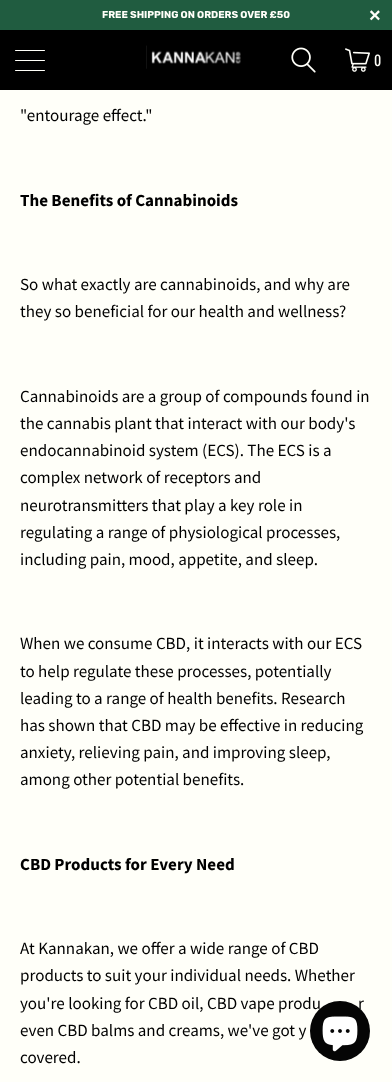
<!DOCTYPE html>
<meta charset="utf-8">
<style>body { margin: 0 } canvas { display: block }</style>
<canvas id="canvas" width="392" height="1082"></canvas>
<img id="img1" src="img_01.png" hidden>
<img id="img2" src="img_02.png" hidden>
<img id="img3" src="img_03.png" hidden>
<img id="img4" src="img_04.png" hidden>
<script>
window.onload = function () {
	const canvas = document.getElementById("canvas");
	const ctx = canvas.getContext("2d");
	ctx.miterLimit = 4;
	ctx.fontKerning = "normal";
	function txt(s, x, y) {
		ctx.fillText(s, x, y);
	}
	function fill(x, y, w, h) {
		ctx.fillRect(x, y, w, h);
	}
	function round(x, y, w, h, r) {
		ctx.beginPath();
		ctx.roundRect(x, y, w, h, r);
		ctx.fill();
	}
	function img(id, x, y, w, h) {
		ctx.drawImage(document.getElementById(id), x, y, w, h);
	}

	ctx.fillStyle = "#FFFFF9";
	fill(0, 0, 392, 1082);
	ctx.fillStyle = "#205C40";
	fill(0, 0, 392, 30);
	ctx.fillStyle = "#000000";
	fill(0, 30, 392, 60);
	ctx.fillStyle = "#FFFFF9";
	round(15, 50, 30, 1, 0.5);
	round(15, 60, 30, 1, 0.5);
	round(15, 70, 30, 1, 0.5);
	img("img1", 146, 45, 95, 24);
	img("img2", 291, 47, 25, 26);
	img("img3", 345, 48, 25, 24);
	ctx.font = "bold 10px Rubik";
	txt("FREE SHIPPING ON ORDERS OVER £50", 102, 18);
	ctx.font = "bold 20px Liberation Sans";
	txt("×", 369, 22);
	ctx.letterSpacing = "1px";
	ctx.font = "14px Oswald";
	txt("0", 374, 66);
	ctx.letterSpacing = "0px";
	ctx.font = "17px Source Sans Pro";
	ctx.fillStyle = "#000000";
	txt("\"entourage effect.\"", 20, 121);
	ctx.font = "bold 17px Source Sans Pro";
	txt("The Benefits of Cannabinoids", 20, 206);
	ctx.font = "17px Source Sans Pro";
	txt("So what exactly are cannabinoids, and why are", 20, 290);
	txt("they so beneficial for our health and wellness?", 20, 317);
	txt("Cannabinoids are a group of compounds found in", 20, 402);
	txt("the cannabis plant that interact with our body's", 20, 429);
	txt("endocannabinoid system (ECS). The ECS is a", 20, 456);
	txt("complex network of receptors and", 20, 483);
	txt("neurotransmitters that play a key role in", 20, 511);
	txt("regulating a range of physiological processes,", 20, 538);
	txt("including pain, mood, appetite, and sleep.", 20, 565);
	txt("When we consume CBD, it interacts with our ECS", 20, 649);
	txt("to help regulate these processes, potentially", 20, 677);
	txt("leading to a range of health benefits. Research", 20, 704);
	txt("has shown that CBD may be effective in reducing", 20, 731);
	txt("anxiety, relieving pain, and improving sleep,", 20, 758);
	txt("among other potential benefits.", 20, 785);
	ctx.font = "bold 17px Source Sans Pro";
	txt("CBD Products for Every Need", 20, 870);
	ctx.font = "17px Source Sans Pro";
	txt("At Kannakan, we offer a wide range of CBD", 20, 954);
	txt("products to suit your individual needs. Whether", 20, 981);
	txt("you're looking for CBD oil, CBD vape produ", 20, 1009);
	txt("r", 358, 1009);
	txt("even CBD balms and creams, we've got y", 20, 1036);
	txt("covered.", 20, 1063);
	ctx.fillStyle = "#050505";
	ctx.beginPath();
	ctx.arc(340, 1031, 30, 0, Math.PI * 2);
	ctx.fill();
	img("img4", 322, 1016, 36, 36);
};
</script>
